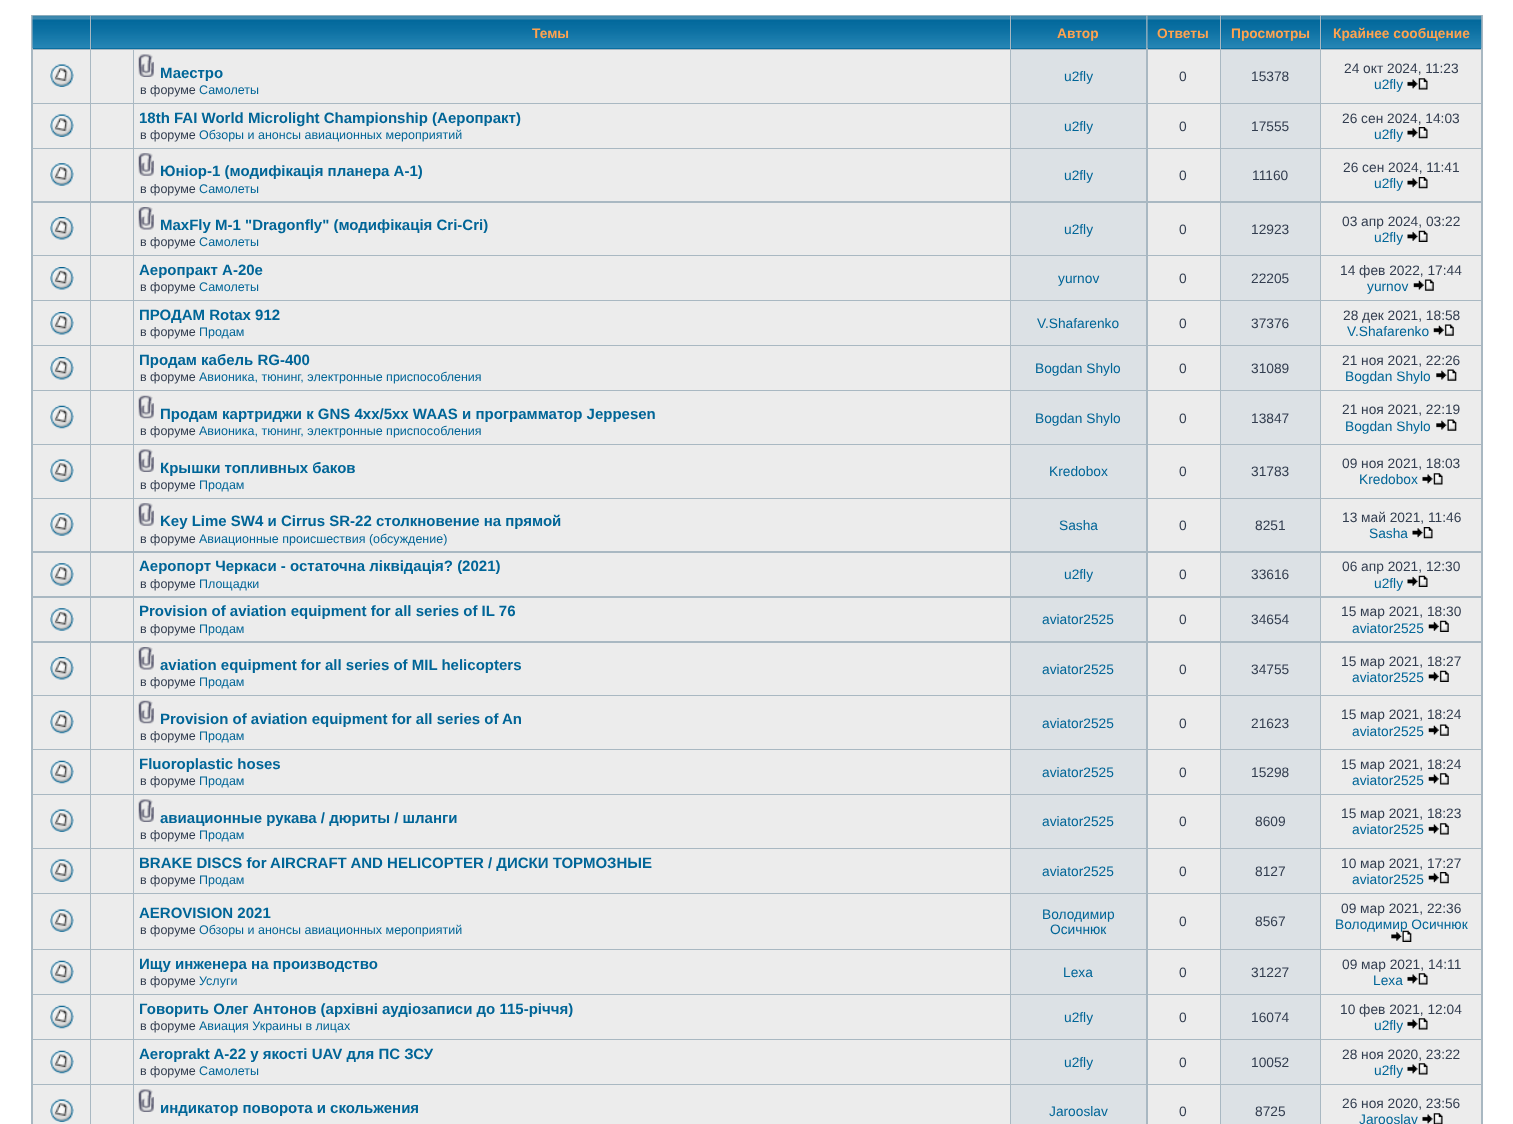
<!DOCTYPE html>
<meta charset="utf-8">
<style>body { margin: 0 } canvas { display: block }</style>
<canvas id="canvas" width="1513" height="1124"></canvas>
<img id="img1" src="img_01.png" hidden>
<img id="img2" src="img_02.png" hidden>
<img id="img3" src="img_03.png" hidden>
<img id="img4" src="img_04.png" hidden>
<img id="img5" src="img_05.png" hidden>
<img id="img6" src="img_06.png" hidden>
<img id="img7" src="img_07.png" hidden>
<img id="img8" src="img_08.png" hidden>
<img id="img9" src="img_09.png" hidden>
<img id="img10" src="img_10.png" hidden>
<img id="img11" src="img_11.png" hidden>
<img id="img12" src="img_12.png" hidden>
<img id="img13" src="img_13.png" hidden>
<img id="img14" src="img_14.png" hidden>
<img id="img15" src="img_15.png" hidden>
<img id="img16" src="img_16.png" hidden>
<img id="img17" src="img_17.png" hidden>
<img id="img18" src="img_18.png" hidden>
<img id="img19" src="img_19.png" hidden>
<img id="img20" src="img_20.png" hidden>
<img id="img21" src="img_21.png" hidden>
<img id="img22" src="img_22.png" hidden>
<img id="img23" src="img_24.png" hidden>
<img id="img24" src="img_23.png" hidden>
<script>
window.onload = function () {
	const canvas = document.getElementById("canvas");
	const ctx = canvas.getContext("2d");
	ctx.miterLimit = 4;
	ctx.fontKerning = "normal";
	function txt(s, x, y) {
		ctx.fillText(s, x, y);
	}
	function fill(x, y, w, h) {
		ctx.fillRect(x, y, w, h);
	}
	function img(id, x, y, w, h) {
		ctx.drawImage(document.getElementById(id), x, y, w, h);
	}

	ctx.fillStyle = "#FFFFFF";
	fill(0, 0, 1513, 1124);
	ctx.fillStyle = "#A9B8C2";
	fill(31, 15, 1452, 1109);
	ctx.fillStyle = "#006699";
	fill(33, 48, 57, 1);
	img("img1", 32, 15, 58, 34);
	fill(91, 16, 919, 33);
	img("img2", 91, 15, 919, 34);
	fill(1011, 16, 135, 33);
	img("img3", 1011, 15, 136, 34);
	fill(1148, 48, 72, 1);
	img("img4", 1147, 15, 73, 34);
	fill(1221, 16, 99, 33);
	img("img5", 1221, 15, 99, 34);
	fill(1321, 16, 160, 33);
	img("img6", 1321, 15, 161, 34);
	ctx.fillStyle = "#ECECEC";
	fill(33, 50, 57, 53);
	img("img7", 50, 64, 24, 23);
	fill(91, 50, 42, 53);
	fill(134, 50, 876, 53);
	img("img8", 138, 54, 16, 23);
	ctx.fillStyle = "#DCE1E5";
	fill(1011, 50, 135, 53);
	ctx.fillStyle = "#ECECEC";
	fill(1148, 50, 72, 53);
	ctx.fillStyle = "#DCE1E5";
	fill(1221, 50, 99, 53);
	ctx.fillStyle = "#ECECEC";
	fill(1321, 50, 160, 53);
	img("img9", 1407, 78, 21, 12);
	fill(33, 104, 57, 44);
	img("img7", 50, 114, 24, 23);
	fill(91, 104, 42, 44);
	fill(134, 104, 876, 44);
	ctx.fillStyle = "#DCE1E5";
	fill(1011, 104, 135, 44);
	ctx.fillStyle = "#ECECEC";
	fill(1148, 104, 72, 44);
	ctx.fillStyle = "#DCE1E5";
	fill(1221, 104, 99, 44);
	ctx.fillStyle = "#ECECEC";
	fill(1321, 104, 160, 44);
	img("img10", 1407, 127, 21, 12);
	fill(33, 149, 57, 52);
	img("img11", 50, 163, 24, 23);
	fill(91, 149, 42, 52);
	fill(134, 149, 876, 52);
	img("img12", 138, 153, 16, 23);
	ctx.fillStyle = "#DCE1E5";
	fill(1011, 149, 135, 52);
	ctx.fillStyle = "#ECECEC";
	fill(1148, 149, 72, 52);
	ctx.fillStyle = "#DCE1E5";
	fill(1221, 149, 99, 52);
	ctx.fillStyle = "#ECECEC";
	fill(1321, 149, 160, 52);
	img("img10", 1407, 177, 21, 12);
	fill(33, 203, 57, 52);
	img("img13", 50, 217, 24, 23);
	fill(91, 203, 42, 52);
	fill(134, 203, 876, 52);
	img("img14", 138, 207, 16, 23);
	ctx.fillStyle = "#DCE1E5";
	fill(1011, 203, 135, 52);
	ctx.fillStyle = "#ECECEC";
	fill(1148, 203, 72, 52);
	ctx.fillStyle = "#DCE1E5";
	fill(1221, 203, 99, 52);
	ctx.fillStyle = "#ECECEC";
	fill(1321, 203, 160, 52);
	img("img15", 1407, 230, 21, 12);
	fill(33, 256, 57, 44);
	img("img13", 50, 267, 24, 23);
	fill(91, 256, 42, 44);
	fill(134, 256, 876, 44);
	ctx.fillStyle = "#DCE1E5";
	fill(1011, 256, 135, 44);
	ctx.fillStyle = "#ECECEC";
	fill(1148, 256, 72, 44);
	ctx.fillStyle = "#DCE1E5";
	fill(1221, 256, 99, 44);
	ctx.fillStyle = "#ECECEC";
	fill(1321, 256, 160, 44);
	img("img16", 1413, 279, 21, 12);
	fill(33, 301, 57, 44);
	img("img13", 50, 312, 24, 23);
	fill(91, 301, 42, 44);
	fill(134, 301, 876, 44);
	ctx.fillStyle = "#DCE1E5";
	fill(1011, 301, 135, 44);
	ctx.fillStyle = "#ECECEC";
	fill(1148, 301, 72, 44);
	ctx.fillStyle = "#DCE1E5";
	fill(1221, 301, 99, 44);
	ctx.fillStyle = "#ECECEC";
	fill(1321, 301, 160, 44);
	img("img16", 1433, 324, 21, 12);
	fill(33, 346, 57, 44);
	img("img13", 50, 357, 24, 23);
	fill(91, 346, 42, 44);
	fill(134, 346, 876, 44);
	ctx.fillStyle = "#DCE1E5";
	fill(1011, 346, 135, 44);
	ctx.fillStyle = "#ECECEC";
	fill(1148, 346, 72, 44);
	ctx.fillStyle = "#DCE1E5";
	fill(1221, 346, 99, 44);
	ctx.fillStyle = "#ECECEC";
	fill(1321, 346, 160, 44);
	img("img17", 1436, 369, 21, 12);
	fill(33, 391, 57, 53);
	img("img18", 50, 405, 24, 24);
	fill(91, 391, 42, 53);
	fill(134, 391, 876, 53);
	img("img19", 138, 395, 16, 24);
	ctx.fillStyle = "#DCE1E5";
	fill(1011, 391, 135, 53);
	ctx.fillStyle = "#ECECEC";
	fill(1148, 391, 72, 53);
	ctx.fillStyle = "#DCE1E5";
	fill(1221, 391, 99, 53);
	ctx.fillStyle = "#ECECEC";
	fill(1321, 391, 160, 53);
	img("img17", 1436, 419, 21, 12);
	fill(33, 445, 57, 53);
	img("img7", 50, 459, 24, 23);
	fill(91, 445, 42, 53);
	fill(134, 445, 876, 53);
	img("img8", 138, 449, 16, 23);
	ctx.fillStyle = "#DCE1E5";
	fill(1011, 445, 135, 53);
	ctx.fillStyle = "#ECECEC";
	fill(1148, 445, 72, 53);
	ctx.fillStyle = "#DCE1E5";
	fill(1221, 445, 99, 53);
	ctx.fillStyle = "#ECECEC";
	fill(1321, 445, 160, 53);
	img("img9", 1422, 473, 21, 12);
	fill(33, 499, 57, 52);
	img("img11", 50, 513, 24, 23);
	fill(91, 499, 42, 52);
	fill(134, 499, 876, 52);
	img("img12", 138, 503, 16, 23);
	ctx.fillStyle = "#DCE1E5";
	fill(1011, 499, 135, 52);
	ctx.fillStyle = "#ECECEC";
	fill(1148, 499, 72, 52);
	ctx.fillStyle = "#DCE1E5";
	fill(1221, 499, 99, 52);
	ctx.fillStyle = "#ECECEC";
	fill(1321, 499, 160, 52);
	img("img10", 1412, 527, 21, 12);
	fill(33, 553, 57, 43);
	img("img11", 50, 563, 24, 23);
	fill(91, 553, 42, 43);
	fill(134, 553, 876, 43);
	ctx.fillStyle = "#DCE1E5";
	fill(1011, 553, 135, 43);
	ctx.fillStyle = "#ECECEC";
	fill(1148, 553, 72, 43);
	ctx.fillStyle = "#DCE1E5";
	fill(1221, 553, 99, 43);
	ctx.fillStyle = "#ECECEC";
	fill(1321, 553, 160, 43);
	img("img15", 1407, 575, 21, 12);
	fill(33, 598, 57, 43);
	img("img11", 50, 608, 24, 23);
	fill(91, 598, 42, 43);
	fill(134, 598, 876, 43);
	ctx.fillStyle = "#DCE1E5";
	fill(1011, 598, 135, 43);
	ctx.fillStyle = "#ECECEC";
	fill(1148, 598, 72, 43);
	ctx.fillStyle = "#DCE1E5";
	fill(1221, 598, 99, 43);
	ctx.fillStyle = "#ECECEC";
	fill(1321, 598, 160, 43);
	img("img20", 1428, 620, 21, 12);
	fill(33, 643, 57, 52);
	img("img13", 50, 657, 24, 23);
	fill(91, 643, 42, 52);
	fill(134, 643, 876, 52);
	img("img14", 138, 647, 16, 23);
	ctx.fillStyle = "#DCE1E5";
	fill(1011, 643, 135, 52);
	ctx.fillStyle = "#ECECEC";
	fill(1148, 643, 72, 52);
	ctx.fillStyle = "#DCE1E5";
	fill(1221, 643, 99, 52);
	ctx.fillStyle = "#ECECEC";
	fill(1321, 643, 160, 52);
	img("img20", 1428, 670, 21, 12);
	fill(33, 696, 57, 53);
	img("img18", 50, 710, 24, 24);
	fill(91, 696, 42, 53);
	fill(134, 696, 876, 53);
	img("img19", 138, 700, 16, 24);
	ctx.fillStyle = "#DCE1E5";
	fill(1011, 696, 135, 53);
	ctx.fillStyle = "#ECECEC";
	fill(1148, 696, 72, 53);
	ctx.fillStyle = "#DCE1E5";
	fill(1221, 696, 99, 53);
	ctx.fillStyle = "#ECECEC";
	fill(1321, 696, 160, 53);
	img("img16", 1428, 724, 21, 12);
	fill(33, 750, 57, 44);
	img("img18", 50, 760, 24, 24);
	fill(91, 750, 42, 44);
	fill(134, 750, 876, 44);
	ctx.fillStyle = "#DCE1E5";
	fill(1011, 750, 135, 44);
	ctx.fillStyle = "#ECECEC";
	fill(1148, 750, 72, 44);
	ctx.fillStyle = "#DCE1E5";
	fill(1221, 750, 99, 44);
	ctx.fillStyle = "#ECECEC";
	fill(1321, 750, 160, 44);
	img("img21", 1428, 773, 21, 12);
	fill(33, 795, 57, 53);
	img("img7", 50, 809, 24, 23);
	fill(91, 795, 42, 53);
	fill(134, 795, 876, 53);
	img("img8", 138, 799, 16, 23);
	ctx.fillStyle = "#DCE1E5";
	fill(1011, 795, 135, 53);
	ctx.fillStyle = "#ECECEC";
	fill(1148, 795, 72, 53);
	ctx.fillStyle = "#DCE1E5";
	fill(1221, 795, 99, 53);
	ctx.fillStyle = "#ECECEC";
	fill(1321, 795, 160, 53);
	img("img21", 1428, 823, 21, 12);
	fill(33, 849, 57, 44);
	img("img7", 50, 859, 24, 23);
	fill(91, 849, 42, 44);
	fill(134, 849, 876, 44);
	ctx.fillStyle = "#DCE1E5";
	fill(1011, 849, 135, 44);
	ctx.fillStyle = "#ECECEC";
	fill(1148, 849, 72, 44);
	ctx.fillStyle = "#DCE1E5";
	fill(1221, 849, 99, 44);
	ctx.fillStyle = "#ECECEC";
	fill(1321, 849, 160, 44);
	img("img22", 1428, 872, 21, 12);
	fill(33, 894, 57, 55);
	img("img7", 50, 909, 24, 23);
	fill(91, 894, 42, 55);
	fill(134, 894, 876, 55);
	ctx.fillStyle = "#DCE1E5";
	fill(1011, 894, 135, 55);
	ctx.fillStyle = "#ECECEC";
	fill(1148, 894, 72, 55);
	ctx.fillStyle = "#DCE1E5";
	fill(1221, 894, 99, 55);
	ctx.fillStyle = "#ECECEC";
	fill(1321, 894, 160, 55);
	fill(33, 950, 57, 44);
	img("img18", 50, 960, 24, 24);
	fill(91, 950, 42, 44);
	fill(134, 950, 876, 44);
	ctx.fillStyle = "#DCE1E5";
	fill(1011, 950, 135, 44);
	ctx.fillStyle = "#ECECEC";
	fill(1148, 950, 72, 44);
	ctx.fillStyle = "#DCE1E5";
	fill(1221, 950, 99, 44);
	ctx.fillStyle = "#ECECEC";
	fill(1321, 950, 160, 44);
	img("img9", 1407, 973, 21, 12);
	fill(33, 995, 57, 44);
	img("img18", 50, 1005, 24, 24);
	fill(91, 995, 42, 44);
	fill(134, 995, 876, 44);
	ctx.fillStyle = "#DCE1E5";
	fill(1011, 995, 135, 44);
	ctx.fillStyle = "#ECECEC";
	fill(1148, 995, 72, 44);
	ctx.fillStyle = "#DCE1E5";
	fill(1221, 995, 99, 44);
	ctx.fillStyle = "#ECECEC";
	fill(1321, 995, 160, 44);
	img("img9", 1407, 1018, 21, 12);
	fill(33, 1040, 57, 44);
	img("img18", 50, 1050, 24, 24);
	fill(91, 1040, 42, 44);
	fill(134, 1040, 876, 44);
	ctx.fillStyle = "#DCE1E5";
	fill(1011, 1040, 135, 44);
	ctx.fillStyle = "#ECECEC";
	fill(1148, 1040, 72, 44);
	ctx.fillStyle = "#DCE1E5";
	fill(1221, 1040, 99, 44);
	ctx.fillStyle = "#ECECEC";
	fill(1321, 1040, 160, 44);
	img("img9", 1407, 1063, 21, 12);
	fill(33, 1085, 57, 39);
	img("img7", 50, 1099, 24, 23);
	fill(91, 1085, 42, 39);
	fill(134, 1085, 876, 39);
	img("img8", 138, 1089, 16, 23);
	ctx.fillStyle = "#DCE1E5";
	fill(1011, 1085, 135, 39);
	ctx.fillStyle = "#ECECEC";
	fill(1148, 1085, 72, 39);
	ctx.fillStyle = "#DCE1E5";
	fill(1221, 1085, 99, 39);
	ctx.fillStyle = "#ECECEC";
	fill(1321, 1085, 160, 39);
	img("img23", 1422, 1113, 21, 11);
	ctx.font = "bold 13.75px Liberation Sans";
	ctx.fillStyle = "#FFA34F";
	txt("Темы", 532, 38);
	txt("Автор", 1057, 38);
	txt("Ответы", 1157, 38);
	txt("Просмотры", 1231, 38);
	txt("Крайнее сообщение", 1333, 38);
	ctx.font = "bold 15px Liberation Sans";
	ctx.fillStyle = "#006597";
	txt("Маестро", 160, 78);
	ctx.font = "12.5px Liberation Sans";
	ctx.fillStyle = "#323D4F";
	txt("в форуме", 140, 94);
	ctx.fillStyle = "#006597";
	txt("Самолеты", 199, 94);
	ctx.font = "13.75px Liberation Sans";
	txt("u2fly", 1064, 81);
	ctx.fillStyle = "#323D4F";
	txt("0", 1179, 81);
	txt("15378", 1251, 81);
	txt("24 окт 2024, 11:23", 1344, 73);
	ctx.fillStyle = "#006597";
	txt("u2fly", 1374, 89);
	ctx.font = "bold 15px Liberation Sans";
	txt("18th FAI World Microlight Championship (Аеропракт)", 139, 123);
	ctx.font = "12.5px Liberation Sans";
	ctx.fillStyle = "#323D4F";
	txt("в форуме", 140, 139);
	ctx.fillStyle = "#006597";
	txt("Обзоры и анонсы авиационных мероприятий", 199, 139);
	ctx.font = "13.75px Liberation Sans";
	txt("u2fly", 1064, 131);
	ctx.fillStyle = "#323D4F";
	txt("0", 1179, 131);
	txt("17555", 1251, 131);
	txt("26 сен 2024, 14:03", 1342, 123);
	ctx.fillStyle = "#006597";
	txt("u2fly", 1374, 139);
	ctx.font = "bold 15px Liberation Sans";
	txt("Юніор-1 (модифікація планера А-1)", 160, 176);
	ctx.font = "12.5px Liberation Sans";
	ctx.fillStyle = "#323D4F";
	txt("в форуме", 140, 193);
	ctx.fillStyle = "#006597";
	txt("Самолеты", 199, 193);
	ctx.font = "13.75px Liberation Sans";
	txt("u2fly", 1064, 180);
	ctx.fillStyle = "#323D4F";
	txt("0", 1179, 180);
	txt("11160", 1252, 180);
	txt("26 сен 2024, 11:41", 1343, 172);
	ctx.fillStyle = "#006597";
	txt("u2fly", 1374, 188);
	ctx.font = "bold 15px Liberation Sans";
	txt("MaxFly M-1 \"Dragonfly\" (модифікація Cri-Cri)", 160, 230);
	ctx.font = "12.5px Liberation Sans";
	ctx.fillStyle = "#323D4F";
	txt("в форуме", 140, 246);
	ctx.fillStyle = "#006597";
	txt("Самолеты", 199, 246);
	ctx.font = "13.75px Liberation Sans";
	txt("u2fly", 1064, 234);
	ctx.fillStyle = "#323D4F";
	txt("0", 1179, 234);
	txt("12923", 1251, 234);
	txt("03 апр 2024, 03:22", 1342, 226);
	ctx.fillStyle = "#006597";
	txt("u2fly", 1374, 242);
	ctx.font = "bold 15px Liberation Sans";
	txt("Аеропракт А-20е", 139, 275);
	ctx.font = "12.5px Liberation Sans";
	ctx.fillStyle = "#323D4F";
	txt("в форуме", 140, 291);
	ctx.fillStyle = "#006597";
	txt("Самолеты", 199, 291);
	ctx.font = "13.75px Liberation Sans";
	txt("yurnov", 1058, 283);
	ctx.fillStyle = "#323D4F";
	txt("0", 1179, 283);
	txt("22205", 1251, 283);
	txt("14 фев 2022, 17:44", 1340, 275);
	ctx.fillStyle = "#006597";
	txt("yurnov", 1367, 291);
	ctx.font = "bold 15px Liberation Sans";
	txt("ПРОДАМ Rotax 912", 139, 320);
	ctx.font = "12.5px Liberation Sans";
	ctx.fillStyle = "#323D4F";
	txt("в форуме", 140, 336);
	ctx.fillStyle = "#006597";
	txt("Продам", 199, 336);
	ctx.font = "13.75px Liberation Sans";
	txt("V.Shafarenko", 1037, 328);
	ctx.fillStyle = "#323D4F";
	txt("0", 1179, 328);
	txt("37376", 1251, 328);
	txt("28 дек 2021, 18:58", 1343, 320);
	ctx.fillStyle = "#006597";
	txt("V.Shafarenko", 1347, 336);
	ctx.font = "bold 15px Liberation Sans";
	txt("Продам кабель RG-400", 139, 365);
	ctx.font = "12.5px Liberation Sans";
	ctx.fillStyle = "#323D4F";
	txt("в форуме", 140, 381);
	ctx.fillStyle = "#006597";
	txt("Авионика, тюнинг, электронные приспособления", 199, 381);
	ctx.font = "13.75px Liberation Sans";
	txt("Bogdan Shylo", 1035, 373);
	ctx.fillStyle = "#323D4F";
	txt("0", 1179, 373);
	txt("31089", 1251, 373);
	txt("21 ноя 2021, 22:26", 1342, 365);
	ctx.fillStyle = "#006597";
	txt("Bogdan Shylo", 1345, 381);
	ctx.font = "bold 15px Liberation Sans";
	txt("Продам картриджи к GNS 4xx/5xx WAAS и программатор Jeppesen", 160, 419);
	ctx.font = "12.5px Liberation Sans";
	ctx.fillStyle = "#323D4F";
	txt("в форуме", 140, 435);
	ctx.fillStyle = "#006597";
	txt("Авионика, тюнинг, электронные приспособления", 199, 435);
	ctx.font = "13.75px Liberation Sans";
	txt("Bogdan Shylo", 1035, 423);
	ctx.fillStyle = "#323D4F";
	txt("0", 1179, 423);
	txt("13847", 1251, 423);
	txt("21 ноя 2021, 22:19", 1342, 414);
	ctx.fillStyle = "#006597";
	txt("Bogdan Shylo", 1345, 431);
	ctx.font = "bold 15px Liberation Sans";
	txt("Крышки топливных баков", 160, 473);
	ctx.font = "12.5px Liberation Sans";
	ctx.fillStyle = "#323D4F";
	txt("в форуме", 140, 489);
	ctx.fillStyle = "#006597";
	txt("Продам", 199, 489);
	ctx.font = "13.75px Liberation Sans";
	txt("Kredobox", 1049, 476);
	ctx.fillStyle = "#323D4F";
	txt("0", 1179, 476);
	txt("31783", 1251, 476);
	txt("09 ноя 2021, 18:03", 1342, 468);
	ctx.fillStyle = "#006597";
	txt("Kredobox", 1359, 484);
	ctx.font = "bold 15px Liberation Sans";
	txt("Key Lime SW4 и Cirrus SR-22 столкновение на прямой", 160, 526);
	ctx.font = "12.5px Liberation Sans";
	ctx.fillStyle = "#323D4F";
	txt("в форуме", 140, 543);
	ctx.fillStyle = "#006597";
	txt("Авиационные происшествия (обсуждение)", 199, 543);
	ctx.font = "13.75px Liberation Sans";
	txt("Sasha", 1059, 530);
	ctx.fillStyle = "#323D4F";
	txt("0", 1179, 530);
	txt("8251", 1255, 530);
	txt("13 май 2021, 11:46", 1342, 522);
	ctx.fillStyle = "#006597";
	txt("Sasha", 1369, 538);
	ctx.font = "bold 15px Liberation Sans";
	txt("Аеропорт Черкаси - остаточна ліквідація? (2021)", 139, 571);
	ctx.font = "12.5px Liberation Sans";
	ctx.fillStyle = "#323D4F";
	txt("в форуме", 140, 588);
	ctx.fillStyle = "#006597";
	txt("Площадки", 199, 588);
	ctx.font = "13.75px Liberation Sans";
	txt("u2fly", 1064, 579);
	ctx.fillStyle = "#323D4F";
	txt("0", 1179, 579);
	txt("33616", 1251, 579);
	txt("06 апр 2021, 12:30", 1342, 571);
	ctx.fillStyle = "#006597";
	txt("u2fly", 1374, 588);
	ctx.font = "bold 15px Liberation Sans";
	txt("Provision of aviation equipment for all series of IL 76", 139, 616);
	ctx.font = "12.5px Liberation Sans";
	ctx.fillStyle = "#323D4F";
	txt("в форуме", 140, 633);
	ctx.fillStyle = "#006597";
	txt("Продам", 199, 633);
	ctx.font = "13.75px Liberation Sans";
	txt("aviator2525", 1042, 624);
	ctx.fillStyle = "#323D4F";
	txt("0", 1179, 624);
	txt("34654", 1251, 624);
	txt("15 мар 2021, 18:30", 1341, 616);
	ctx.fillStyle = "#006597";
	txt("aviator2525", 1352, 633);
	ctx.font = "bold 15px Liberation Sans";
	txt("aviation equipment for all series of MIL helicopters", 160, 670);
	ctx.font = "12.5px Liberation Sans";
	ctx.fillStyle = "#323D4F";
	txt("в форуме", 140, 686);
	ctx.fillStyle = "#006597";
	txt("Продам", 199, 686);
	ctx.font = "13.75px Liberation Sans";
	txt("aviator2525", 1042, 674);
	ctx.fillStyle = "#323D4F";
	txt("0", 1179, 674);
	txt("34755", 1251, 674);
	txt("15 мар 2021, 18:27", 1341, 666);
	ctx.fillStyle = "#006597";
	txt("aviator2525", 1352, 682);
	ctx.font = "bold 15px Liberation Sans";
	txt("Provision of aviation equipment for all series of An", 160, 724);
	ctx.font = "12.5px Liberation Sans";
	ctx.fillStyle = "#323D4F";
	txt("в форуме", 140, 740);
	ctx.fillStyle = "#006597";
	txt("Продам", 199, 740);
	ctx.font = "13.75px Liberation Sans";
	txt("aviator2525", 1042, 728);
	ctx.fillStyle = "#323D4F";
	txt("0", 1179, 728);
	txt("21623", 1251, 728);
	txt("15 мар 2021, 18:24", 1341, 719);
	ctx.fillStyle = "#006597";
	txt("aviator2525", 1352, 736);
	ctx.font = "bold 15px Liberation Sans";
	txt("Fluoroplastic hoses", 139, 769);
	ctx.font = "12.5px Liberation Sans";
	ctx.fillStyle = "#323D4F";
	txt("в форуме", 140, 785);
	ctx.fillStyle = "#006597";
	txt("Продам", 199, 785);
	ctx.font = "13.75px Liberation Sans";
	txt("aviator2525", 1042, 777);
	ctx.fillStyle = "#323D4F";
	txt("0", 1179, 777);
	txt("15298", 1251, 777);
	txt("15 мар 2021, 18:24", 1341, 769);
	ctx.fillStyle = "#006597";
	txt("aviator2525", 1352, 785);
	ctx.font = "bold 15px Liberation Sans";
	txt("авиационные рукава / дюриты / шланги", 160, 823);
	ctx.font = "12.5px Liberation Sans";
	ctx.fillStyle = "#323D4F";
	txt("в форуме", 140, 839);
	ctx.fillStyle = "#006597";
	txt("Продам", 199, 839);
	ctx.font = "13.75px Liberation Sans";
	txt("aviator2525", 1042, 826);
	ctx.fillStyle = "#323D4F";
	txt("0", 1179, 826);
	txt("8609", 1255, 826);
	txt("15 мар 2021, 18:23", 1341, 818);
	ctx.fillStyle = "#006597";
	txt("aviator2525", 1352, 834);
	ctx.font = "bold 15px Liberation Sans";
	txt("BRAKE DISCS for AIRCRAFT AND HELICOPTER / ДИСКИ ТОРМОЗНЫЕ", 139, 868);
	ctx.font = "12.5px Liberation Sans";
	ctx.fillStyle = "#323D4F";
	txt("в форуме", 140, 884);
	ctx.fillStyle = "#006597";
	txt("Продам", 199, 884);
	ctx.font = "13.75px Liberation Sans";
	txt("aviator2525", 1042, 876);
	ctx.fillStyle = "#323D4F";
	txt("0", 1179, 876);
	txt("8127", 1255, 876);
	txt("10 мар 2021, 17:27", 1341, 868);
	ctx.fillStyle = "#006597";
	txt("aviator2525", 1352, 884);
	ctx.font = "bold 15px Liberation Sans";
	txt("AEROVISION 2021", 139, 918);
	ctx.font = "12.5px Liberation Sans";
	ctx.fillStyle = "#323D4F";
	txt("в форуме", 140, 934);
	ctx.fillStyle = "#006597";
	txt("Обзоры и анонсы авиационных мероприятий", 199, 934);
	ctx.font = "13.75px Liberation Sans";
	txt("Володимир", 1042, 919);
	txt("Осичнюк", 1050, 934);
	ctx.fillStyle = "#323D4F";
	txt("0", 1179, 926);
	txt("8567", 1255, 926);
	txt("09 мар 2021, 22:36", 1341, 913);
	ctx.fillStyle = "#006597";
	txt("Володимир Осичнюк", 1335, 929);
	img("img24", 1391, 930, 21, 12);
	ctx.font = "bold 15px Liberation Sans";
	txt("Ищу инженера на производство", 139, 969);
	ctx.font = "12.5px Liberation Sans";
	ctx.fillStyle = "#323D4F";
	txt("в форуме", 140, 985);
	ctx.fillStyle = "#006597";
	txt("Услуги", 199, 985);
	ctx.font = "13.75px Liberation Sans";
	txt("Lexa", 1063, 977);
	ctx.fillStyle = "#323D4F";
	txt("0", 1179, 977);
	txt("31227", 1251, 977);
	txt("09 мар 2021, 14:11", 1342, 969);
	ctx.fillStyle = "#006597";
	txt("Lexa", 1373, 985);
	ctx.font = "bold 15px Liberation Sans";
	txt("Говорить Олег Антонов (архівні аудіозаписи до 115-річчя)", 139, 1014);
	ctx.font = "12.5px Liberation Sans";
	ctx.fillStyle = "#323D4F";
	txt("в форуме", 140, 1030);
	ctx.fillStyle = "#006597";
	txt("Авиация Украины в лицах", 199, 1030);
	ctx.font = "13.75px Liberation Sans";
	txt("u2fly", 1064, 1022);
	ctx.fillStyle = "#323D4F";
	txt("0", 1179, 1022);
	txt("16074", 1251, 1022);
	txt("10 фев 2021, 12:04", 1340, 1014);
	ctx.fillStyle = "#006597";
	txt("u2fly", 1374, 1030);
	ctx.font = "bold 15px Liberation Sans";
	txt("Aeroprakt A-22 у якості UAV для ПС ЗСУ", 139, 1059);
	ctx.font = "12.5px Liberation Sans";
	ctx.fillStyle = "#323D4F";
	txt("в форуме", 140, 1075);
	ctx.fillStyle = "#006597";
	txt("Самолеты", 199, 1075);
	ctx.font = "13.75px Liberation Sans";
	txt("u2fly", 1064, 1067);
	ctx.fillStyle = "#323D4F";
	txt("0", 1179, 1067);
	txt("10052", 1251, 1067);
	txt("28 ноя 2020, 23:22", 1342, 1059);
	ctx.fillStyle = "#006597";
	txt("u2fly", 1374, 1075);
	ctx.font = "bold 15px Liberation Sans";
	txt("индикатор поворота и скольжения", 160, 1113);
	ctx.font = "13.75px Liberation Sans";
	txt("Jarooslav", 1049, 1116);
	ctx.fillStyle = "#323D4F";
	txt("0", 1179, 1116);
	txt("8725", 1255, 1116);
	txt("26 ноя 2020, 23:56", 1342, 1108);
	ctx.fillStyle = "#006597";
	txt("Jarooslav", 1359, 1124);
};
</script>
